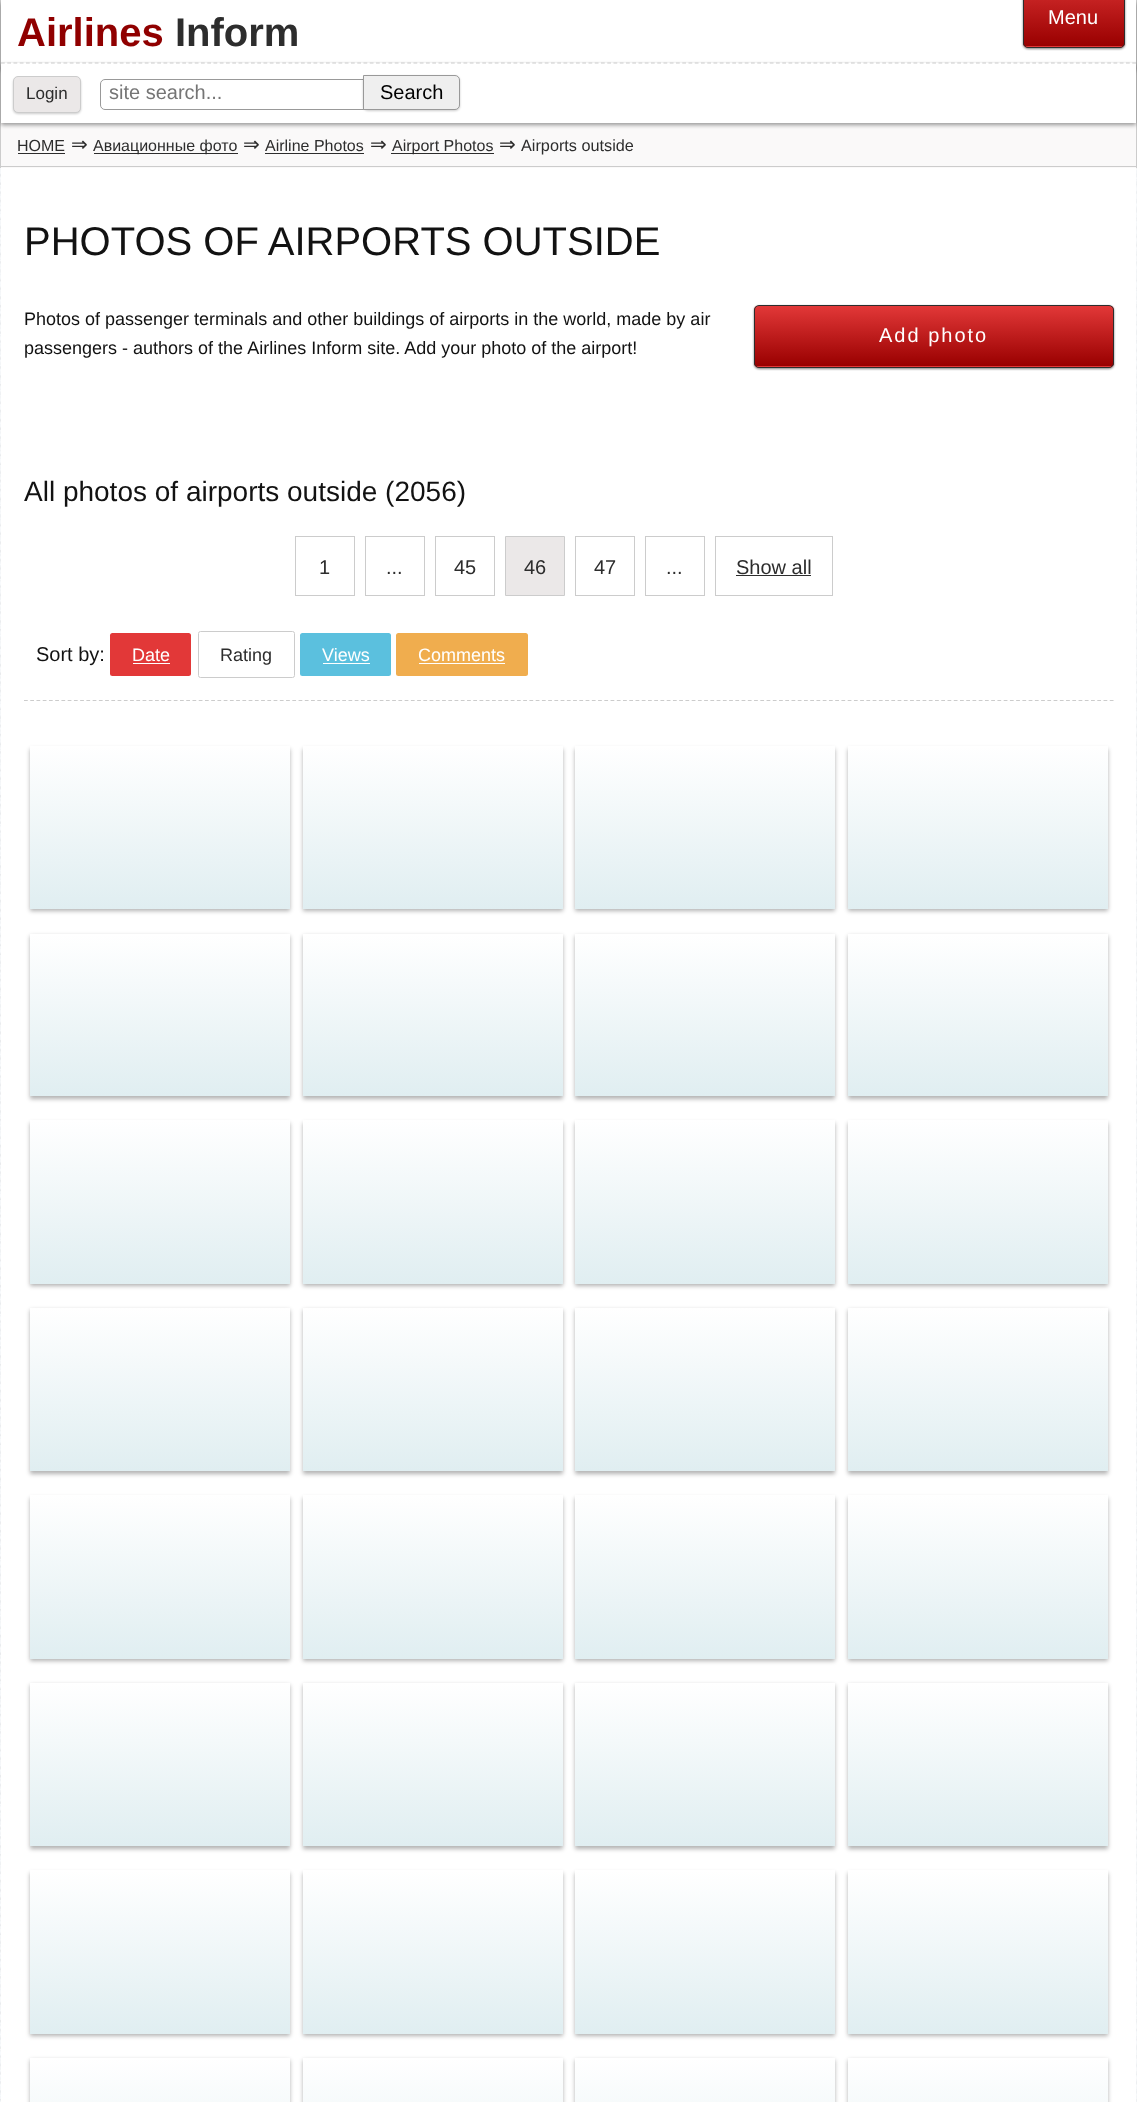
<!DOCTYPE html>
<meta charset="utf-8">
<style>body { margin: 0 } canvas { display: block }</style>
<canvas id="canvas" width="1137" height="2102"></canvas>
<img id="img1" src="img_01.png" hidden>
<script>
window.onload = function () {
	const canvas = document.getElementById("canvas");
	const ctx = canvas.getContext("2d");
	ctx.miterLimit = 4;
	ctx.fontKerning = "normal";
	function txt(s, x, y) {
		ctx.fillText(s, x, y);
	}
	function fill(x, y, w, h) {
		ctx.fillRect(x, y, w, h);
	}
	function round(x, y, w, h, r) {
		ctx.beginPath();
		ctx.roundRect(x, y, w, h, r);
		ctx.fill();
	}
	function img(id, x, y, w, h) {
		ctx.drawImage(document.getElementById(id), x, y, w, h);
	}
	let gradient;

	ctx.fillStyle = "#FFFFFF";
	fill(0, 0, 1137, 2102);
	img("img1", 0, 168, 1137, 1934);
	ctx.fillStyle = "#CCCCCC";
	fill(1136, 0, 1, 168);
	fill(0, 0, 1, 168);
	ctx.fillStyle = "rgba(0, 0, 0, 0.4)";
	ctx.filter = "blur(2px)";
	ctx.beginPath();
	ctx.rect(1, 3, 1135, 68);
	ctx.fill();
	ctx.filter = "none";
	ctx.fillStyle = "#FFFFFF";
	fill(1, 0, 1135, 63);
	ctx.fillStyle = "rgba(0, 0, 0, 0.5)";
	ctx.filter = "blur(1px)";
	ctx.beginPath();
	ctx.roundRect(1023, -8, 102, 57, 5);
	ctx.fill();
	ctx.filter = "none";
	ctx.save();
	ctx.beginPath();
	ctx.roundRect(1023, -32, 102, 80, 5);
	ctx.clip();
	gradient = ctx.createLinearGradient(1024, -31, 1024, 46);
	gradient.addColorStop(0, "#E23838");
	gradient.addColorStop(1, "#990000");
	ctx.fillStyle = gradient;
	fill(1023, 0, 102, 46);
	gradient = ctx.createLinearGradient(1024, 46, 1024, 124);
	gradient.addColorStop(0, "#E23838");
	gradient.addColorStop(1, "#990000");
	ctx.fillStyle = gradient;
	fill(1023, 46, 102, 2);
	ctx.restore();
	ctx.beginPath();
	ctx.roundRect(1023.5, -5.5, 101, 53, 4.5);
	ctx.strokeStyle = "#2D2D2D";
	ctx.stroke();
	ctx.fillStyle = "#FAF9F9";
	fill(1, 123, 1135, 45);
	ctx.fillStyle = "rgba(0, 0, 0, 0.4)";
	ctx.filter = "blur(2px)";
	ctx.beginPath();
	ctx.rect(1, 65, 1135, 60);
	ctx.fill();
	ctx.filter = "none";
	ctx.fillStyle = "#FFFFFF";
	fill(1, 63, 1135, 60);
	ctx.beginPath();
	ctx.moveTo(1, 63);
	ctx.lineTo(1136, 63);
	ctx.strokeStyle = "#CCCCCC";
	ctx.lineWidth = 1.2;
	ctx.setLineDash([3.75, 2.5]);
	ctx.stroke();
	ctx.fillStyle = "rgba(0, 0, 0, 0.2)";
	ctx.filter = "blur(1px)";
	ctx.beginPath();
	ctx.roundRect(13, 78, 68, 36, 5);
	ctx.fill();
	ctx.filter = "none";
	ctx.fillStyle = "#EBE8E8";
	ctx.beginPath();
	ctx.roundRect(13.5, 76.5, 67, 36, 4.5);
	ctx.fill();
	ctx.lineWidth = 1;
	ctx.setLineDash([]);
	ctx.stroke();
	ctx.beginPath();
	ctx.roundRect(100.5, 79.5, 277, 30, [4.5, 0, 0, 4.5]);
	ctx.strokeStyle = "#999999";
	ctx.stroke();
	ctx.fillStyle = "rgba(0, 0, 0, 0.2)";
	ctx.filter = "blur(1px)";
	ctx.beginPath();
	ctx.roundRect(363, 76, 97, 35, 5);
	ctx.fill();
	ctx.filter = "none";
	ctx.fillStyle = "#EFEFEF";
	ctx.beginPath();
	ctx.roundRect(363.5, 75.5, 96, 34, [0, 4.5, 4.5, 0]);
	ctx.fill();
	ctx.stroke();
	ctx.fillStyle = "#CCCCCC";
	fill(1, 166, 1135, 1);
	ctx.fillStyle = "#2D2D2D";
	fill(18, 153, 47, 1);
	fill(94, 153, 144, 1);
	fill(265, 153, 99, 1);
	fill(391, 153, 103, 1);
	ctx.fillStyle = "#FFFFFF";
	fill(1, 168, 1135, 1934);
	ctx.fillStyle = "rgba(0, 0, 0, 0.5)";
	ctx.filter = "blur(1px)";
	ctx.beginPath();
	ctx.roundRect(754, 306, 360, 63, 5);
	ctx.fill();
	ctx.filter = "none";
	ctx.save();
	ctx.beginPath();
	ctx.roundRect(754, 305, 360, 63, 5);
	ctx.clip();
	gradient = ctx.createLinearGradient(755, 306, 755, 366);
	gradient.addColorStop(0, "#E23838");
	gradient.addColorStop(1, "#990000");
	ctx.fillStyle = gradient;
	fill(754, 306, 360, 60);
	gradient = ctx.createLinearGradient(755, 366, 755, 426);
	gradient.addColorStop(0, "#E23838");
	gradient.addColorStop(1, "#990000");
	ctx.fillStyle = gradient;
	fill(754, 366, 360, 2);
	ctx.restore();
	ctx.beginPath();
	ctx.roundRect(754.5, 305.5, 359, 62, 4.5);
	ctx.strokeStyle = "#2D2D2D";
	ctx.stroke();
	ctx.strokeStyle = "#CCCCCC";
	ctx.strokeRect(295.5, 536.5, 59, 59);
	ctx.strokeRect(365.5, 536.5, 59, 59);
	ctx.strokeRect(435.5, 536.5, 59, 59);
	ctx.fillStyle = "#EBE8E8";
	ctx.beginPath();
	ctx.rect(505.5, 536.5, 59, 59);
	ctx.fill();
	ctx.stroke();
	ctx.strokeRect(575.5, 536.5, 59, 59);
	ctx.strokeRect(645.5, 536.5, 59, 59);
	ctx.strokeRect(715.5, 536.5, 117, 59);
	ctx.fillStyle = "#2D2D2D";
	fill(736, 575, 75, 1);
	ctx.beginPath();
	ctx.moveTo(24, 700.5);
	ctx.lineTo(1114, 700.5);
	ctx.lineWidth = 1.2;
	ctx.setLineDash([3.75, 2.49]);
	ctx.stroke();
	ctx.fillStyle = "#E23838";
	round(110, 633, 81, 43, 2.5);
	ctx.fillStyle = "#FFFFFF";
	fill(133, 663, 37, 1);
	ctx.beginPath();
	ctx.roundRect(198.5, 631.5, 96, 46, 2);
	ctx.lineWidth = 1;
	ctx.setLineDash([]);
	ctx.stroke();
	ctx.fillStyle = "#5BC0DE";
	round(300, 633, 91, 43, 2.5);
	ctx.fillStyle = "#FFFFFF";
	fill(323, 663, 47, 1);
	ctx.fillStyle = "#F0AD4E";
	round(396, 633, 132, 43, 2.5);
	ctx.fillStyle = "#FFFFFF";
	fill(419, 663, 86, 1);
	ctx.fillStyle = "rgba(0, 0, 0, 0.3)";
	ctx.filter = "blur(2px)";
	ctx.beginPath();
	ctx.rect(30, 749, 260, 162);
	ctx.fill();
	ctx.filter = "none";
	gradient = ctx.createLinearGradient(30, 746, 30, 909);
	gradient.addColorStop(0, "#FFFFFF");
	gradient.addColorStop(1, "#E0EEF1");
	ctx.fillStyle = gradient;
	fill(30, 746, 260, 163);
	ctx.fillStyle = "rgba(0, 0, 0, 0.3)";
	ctx.filter = "blur(2px)";
	ctx.beginPath();
	ctx.rect(303, 749, 260, 162);
	ctx.fill();
	ctx.filter = "none";
	gradient = ctx.createLinearGradient(303, 746, 303, 909);
	gradient.addColorStop(0, "#FFFFFF");
	gradient.addColorStop(1, "#E0EEF1");
	ctx.fillStyle = gradient;
	fill(303, 746, 260, 163);
	ctx.fillStyle = "rgba(0, 0, 0, 0.3)";
	ctx.filter = "blur(2px)";
	ctx.beginPath();
	ctx.rect(575, 749, 260, 162);
	ctx.fill();
	ctx.filter = "none";
	gradient = ctx.createLinearGradient(575, 746, 575, 909);
	gradient.addColorStop(0, "#FFFFFF");
	gradient.addColorStop(1, "#E0EEF1");
	ctx.fillStyle = gradient;
	fill(575, 746, 260, 163);
	ctx.fillStyle = "rgba(0, 0, 0, 0.3)";
	ctx.filter = "blur(2px)";
	ctx.beginPath();
	ctx.rect(848, 749, 260, 162);
	ctx.fill();
	ctx.filter = "none";
	gradient = ctx.createLinearGradient(848, 746, 848, 909);
	gradient.addColorStop(0, "#FFFFFF");
	gradient.addColorStop(1, "#E0EEF1");
	ctx.fillStyle = gradient;
	fill(848, 746, 260, 163);
	ctx.fillStyle = "rgba(0, 0, 0, 0.3)";
	ctx.filter = "blur(2px)";
	ctx.beginPath();
	ctx.rect(30, 936, 260, 163);
	ctx.fill();
	ctx.filter = "none";
	gradient = ctx.createLinearGradient(30, 934, 30, 1096);
	gradient.addColorStop(0, "#FFFFFF");
	gradient.addColorStop(1, "#E0EEF1");
	ctx.fillStyle = gradient;
	fill(30, 934, 260, 162);
	ctx.fillStyle = "rgba(0, 0, 0, 0.3)";
	ctx.filter = "blur(2px)";
	ctx.beginPath();
	ctx.rect(303, 936, 260, 163);
	ctx.fill();
	ctx.filter = "none";
	gradient = ctx.createLinearGradient(303, 934, 303, 1096);
	gradient.addColorStop(0, "#FFFFFF");
	gradient.addColorStop(1, "#E0EEF1");
	ctx.fillStyle = gradient;
	fill(303, 934, 260, 162);
	ctx.fillStyle = "rgba(0, 0, 0, 0.3)";
	ctx.filter = "blur(2px)";
	ctx.beginPath();
	ctx.rect(575, 936, 260, 163);
	ctx.fill();
	ctx.filter = "none";
	gradient = ctx.createLinearGradient(575, 934, 575, 1096);
	gradient.addColorStop(0, "#FFFFFF");
	gradient.addColorStop(1, "#E0EEF1");
	ctx.fillStyle = gradient;
	fill(575, 934, 260, 162);
	ctx.fillStyle = "rgba(0, 0, 0, 0.3)";
	ctx.filter = "blur(2px)";
	ctx.beginPath();
	ctx.rect(848, 936, 260, 163);
	ctx.fill();
	ctx.filter = "none";
	gradient = ctx.createLinearGradient(848, 934, 848, 1096);
	gradient.addColorStop(0, "#FFFFFF");
	gradient.addColorStop(1, "#E0EEF1");
	ctx.fillStyle = gradient;
	fill(848, 934, 260, 162);
	ctx.fillStyle = "rgba(0, 0, 0, 0.3)";
	ctx.filter = "blur(2px)";
	ctx.beginPath();
	ctx.rect(30, 1123, 260, 163);
	ctx.fill();
	ctx.filter = "none";
	gradient = ctx.createLinearGradient(30, 1120, 30, 1284);
	gradient.addColorStop(0, "#FFFFFF");
	gradient.addColorStop(1, "#E0EEF1");
	ctx.fillStyle = gradient;
	fill(30, 1120, 260, 164);
	ctx.fillStyle = "rgba(0, 0, 0, 0.3)";
	ctx.filter = "blur(2px)";
	ctx.beginPath();
	ctx.rect(303, 1123, 260, 163);
	ctx.fill();
	ctx.filter = "none";
	gradient = ctx.createLinearGradient(303, 1120, 303, 1284);
	gradient.addColorStop(0, "#FFFFFF");
	gradient.addColorStop(1, "#E0EEF1");
	ctx.fillStyle = gradient;
	fill(303, 1120, 260, 164);
	ctx.fillStyle = "rgba(0, 0, 0, 0.3)";
	ctx.filter = "blur(2px)";
	ctx.beginPath();
	ctx.rect(575, 1123, 260, 163);
	ctx.fill();
	ctx.filter = "none";
	gradient = ctx.createLinearGradient(575, 1120, 575, 1284);
	gradient.addColorStop(0, "#FFFFFF");
	gradient.addColorStop(1, "#E0EEF1");
	ctx.fillStyle = gradient;
	fill(575, 1120, 260, 164);
	ctx.fillStyle = "rgba(0, 0, 0, 0.3)";
	ctx.filter = "blur(2px)";
	ctx.beginPath();
	ctx.rect(848, 1123, 260, 163);
	ctx.fill();
	ctx.filter = "none";
	gradient = ctx.createLinearGradient(848, 1120, 848, 1284);
	gradient.addColorStop(0, "#FFFFFF");
	gradient.addColorStop(1, "#E0EEF1");
	ctx.fillStyle = gradient;
	fill(848, 1120, 260, 164);
	ctx.fillStyle = "rgba(0, 0, 0, 0.3)";
	ctx.filter = "blur(2px)";
	ctx.beginPath();
	ctx.rect(30, 1310, 260, 164);
	ctx.fill();
	ctx.filter = "none";
	gradient = ctx.createLinearGradient(30, 1308, 30, 1471);
	gradient.addColorStop(0, "#FFFFFF");
	gradient.addColorStop(1, "#E0EEF1");
	ctx.fillStyle = gradient;
	fill(30, 1308, 260, 163);
	ctx.fillStyle = "rgba(0, 0, 0, 0.3)";
	ctx.filter = "blur(2px)";
	ctx.beginPath();
	ctx.rect(303, 1310, 260, 164);
	ctx.fill();
	ctx.filter = "none";
	gradient = ctx.createLinearGradient(303, 1308, 303, 1471);
	gradient.addColorStop(0, "#FFFFFF");
	gradient.addColorStop(1, "#E0EEF1");
	ctx.fillStyle = gradient;
	fill(303, 1308, 260, 163);
	ctx.fillStyle = "rgba(0, 0, 0, 0.3)";
	ctx.filter = "blur(2px)";
	ctx.beginPath();
	ctx.rect(575, 1310, 260, 164);
	ctx.fill();
	ctx.filter = "none";
	gradient = ctx.createLinearGradient(575, 1308, 575, 1471);
	gradient.addColorStop(0, "#FFFFFF");
	gradient.addColorStop(1, "#E0EEF1");
	ctx.fillStyle = gradient;
	fill(575, 1308, 260, 163);
	ctx.fillStyle = "rgba(0, 0, 0, 0.3)";
	ctx.filter = "blur(2px)";
	ctx.beginPath();
	ctx.rect(848, 1310, 260, 164);
	ctx.fill();
	ctx.filter = "none";
	gradient = ctx.createLinearGradient(848, 1308, 848, 1471);
	gradient.addColorStop(0, "#FFFFFF");
	gradient.addColorStop(1, "#E0EEF1");
	ctx.fillStyle = gradient;
	fill(848, 1308, 260, 163);
	ctx.fillStyle = "rgba(0, 0, 0, 0.3)";
	ctx.filter = "blur(2px)";
	ctx.beginPath();
	ctx.rect(30, 1498, 260, 163);
	ctx.fill();
	ctx.filter = "none";
	gradient = ctx.createLinearGradient(30, 1495, 30, 1659);
	gradient.addColorStop(0, "#FFFFFF");
	gradient.addColorStop(1, "#E0EEF1");
	ctx.fillStyle = gradient;
	fill(30, 1495, 260, 164);
	ctx.fillStyle = "rgba(0, 0, 0, 0.3)";
	ctx.filter = "blur(2px)";
	ctx.beginPath();
	ctx.rect(303, 1498, 260, 163);
	ctx.fill();
	ctx.filter = "none";
	gradient = ctx.createLinearGradient(303, 1495, 303, 1659);
	gradient.addColorStop(0, "#FFFFFF");
	gradient.addColorStop(1, "#E0EEF1");
	ctx.fillStyle = gradient;
	fill(303, 1495, 260, 164);
	ctx.fillStyle = "rgba(0, 0, 0, 0.3)";
	ctx.filter = "blur(2px)";
	ctx.beginPath();
	ctx.rect(575, 1498, 260, 163);
	ctx.fill();
	ctx.filter = "none";
	gradient = ctx.createLinearGradient(575, 1495, 575, 1659);
	gradient.addColorStop(0, "#FFFFFF");
	gradient.addColorStop(1, "#E0EEF1");
	ctx.fillStyle = gradient;
	fill(575, 1495, 260, 164);
	ctx.fillStyle = "rgba(0, 0, 0, 0.3)";
	ctx.filter = "blur(2px)";
	ctx.beginPath();
	ctx.rect(848, 1498, 260, 163);
	ctx.fill();
	ctx.filter = "none";
	gradient = ctx.createLinearGradient(848, 1495, 848, 1659);
	gradient.addColorStop(0, "#FFFFFF");
	gradient.addColorStop(1, "#E0EEF1");
	ctx.fillStyle = gradient;
	fill(848, 1495, 260, 164);
	ctx.fillStyle = "rgba(0, 0, 0, 0.3)";
	ctx.filter = "blur(2px)";
	ctx.beginPath();
	ctx.rect(30, 1685, 260, 164);
	ctx.fill();
	ctx.filter = "none";
	gradient = ctx.createLinearGradient(30, 1683, 30, 1846);
	gradient.addColorStop(0, "#FFFFFF");
	gradient.addColorStop(1, "#E0EEF1");
	ctx.fillStyle = gradient;
	fill(30, 1683, 260, 163);
	ctx.fillStyle = "rgba(0, 0, 0, 0.3)";
	ctx.filter = "blur(2px)";
	ctx.beginPath();
	ctx.rect(303, 1685, 260, 164);
	ctx.fill();
	ctx.filter = "none";
	gradient = ctx.createLinearGradient(303, 1683, 303, 1846);
	gradient.addColorStop(0, "#FFFFFF");
	gradient.addColorStop(1, "#E0EEF1");
	ctx.fillStyle = gradient;
	fill(303, 1683, 260, 163);
	ctx.fillStyle = "rgba(0, 0, 0, 0.3)";
	ctx.filter = "blur(2px)";
	ctx.beginPath();
	ctx.rect(575, 1685, 260, 164);
	ctx.fill();
	ctx.filter = "none";
	gradient = ctx.createLinearGradient(575, 1683, 575, 1846);
	gradient.addColorStop(0, "#FFFFFF");
	gradient.addColorStop(1, "#E0EEF1");
	ctx.fillStyle = gradient;
	fill(575, 1683, 260, 163);
	ctx.fillStyle = "rgba(0, 0, 0, 0.3)";
	ctx.filter = "blur(2px)";
	ctx.beginPath();
	ctx.rect(848, 1685, 260, 164);
	ctx.fill();
	ctx.filter = "none";
	gradient = ctx.createLinearGradient(848, 1683, 848, 1846);
	gradient.addColorStop(0, "#FFFFFF");
	gradient.addColorStop(1, "#E0EEF1");
	ctx.fillStyle = gradient;
	fill(848, 1683, 260, 163);
	ctx.fillStyle = "rgba(0, 0, 0, 0.3)";
	ctx.filter = "blur(2px)";
	ctx.beginPath();
	ctx.rect(30, 1873, 260, 163);
	ctx.fill();
	ctx.filter = "none";
	gradient = ctx.createLinearGradient(30, 1870, 30, 2034);
	gradient.addColorStop(0, "#FFFFFF");
	gradient.addColorStop(1, "#E0EEF1");
	ctx.fillStyle = gradient;
	fill(30, 1870, 260, 164);
	ctx.fillStyle = "rgba(0, 0, 0, 0.3)";
	ctx.filter = "blur(2px)";
	ctx.beginPath();
	ctx.rect(303, 1873, 260, 163);
	ctx.fill();
	ctx.filter = "none";
	gradient = ctx.createLinearGradient(303, 1870, 303, 2034);
	gradient.addColorStop(0, "#FFFFFF");
	gradient.addColorStop(1, "#E0EEF1");
	ctx.fillStyle = gradient;
	fill(303, 1870, 260, 164);
	ctx.fillStyle = "rgba(0, 0, 0, 0.3)";
	ctx.filter = "blur(2px)";
	ctx.beginPath();
	ctx.rect(575, 1873, 260, 163);
	ctx.fill();
	ctx.filter = "none";
	gradient = ctx.createLinearGradient(575, 1870, 575, 2034);
	gradient.addColorStop(0, "#FFFFFF");
	gradient.addColorStop(1, "#E0EEF1");
	ctx.fillStyle = gradient;
	fill(575, 1870, 260, 164);
	ctx.fillStyle = "rgba(0, 0, 0, 0.3)";
	ctx.filter = "blur(2px)";
	ctx.beginPath();
	ctx.rect(848, 1873, 260, 163);
	ctx.fill();
	ctx.filter = "none";
	gradient = ctx.createLinearGradient(848, 1870, 848, 2034);
	gradient.addColorStop(0, "#FFFFFF");
	gradient.addColorStop(1, "#E0EEF1");
	ctx.fillStyle = gradient;
	fill(848, 1870, 260, 164);
	ctx.fillStyle = "rgba(0, 0, 0, 0.3)";
	ctx.filter = "blur(2px)";
	ctx.beginPath();
	ctx.rect(30, 2060, 260, 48);
	ctx.fill();
	ctx.filter = "none";
	gradient = ctx.createLinearGradient(30, 2058, 30, 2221);
	gradient.addColorStop(0, "#FFFFFF");
	gradient.addColorStop(1, "#E0EEF1");
	ctx.fillStyle = gradient;
	fill(30, 2058, 260, 44);
	ctx.fillStyle = "rgba(0, 0, 0, 0.3)";
	ctx.filter = "blur(2px)";
	ctx.beginPath();
	ctx.rect(303, 2060, 260, 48);
	ctx.fill();
	ctx.filter = "none";
	gradient = ctx.createLinearGradient(303, 2058, 303, 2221);
	gradient.addColorStop(0, "#FFFFFF");
	gradient.addColorStop(1, "#E0EEF1");
	ctx.fillStyle = gradient;
	fill(303, 2058, 260, 44);
	ctx.fillStyle = "rgba(0, 0, 0, 0.3)";
	ctx.filter = "blur(2px)";
	ctx.beginPath();
	ctx.rect(575, 2060, 260, 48);
	ctx.fill();
	ctx.filter = "none";
	gradient = ctx.createLinearGradient(575, 2058, 575, 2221);
	gradient.addColorStop(0, "#FFFFFF");
	gradient.addColorStop(1, "#E0EEF1");
	ctx.fillStyle = gradient;
	fill(575, 2058, 260, 44);
	ctx.fillStyle = "rgba(0, 0, 0, 0.3)";
	ctx.filter = "blur(2px)";
	ctx.beginPath();
	ctx.rect(848, 2060, 260, 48);
	ctx.fill();
	ctx.filter = "none";
	gradient = ctx.createLinearGradient(848, 2058, 848, 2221);
	gradient.addColorStop(0, "#FFFFFF");
	gradient.addColorStop(1, "#E0EEF1");
	ctx.fillStyle = gradient;
	fill(848, 2058, 260, 44);
	ctx.font = "bold 40px Liberation Sans";
	ctx.fillStyle = "#900000";
	txt("Airlines", 17, 46);
	ctx.fillStyle = "#2D2D2D";
	txt("Inform", 175, 46);
	ctx.font = "20px Liberation Sans";
	ctx.fillStyle = "#FFFFFF";
	txt("Menu", 1048, 24);
	ctx.font = "17px Liberation Sans";
	ctx.fillStyle = "#2D2D2D";
	txt("Login", 26, 99);
	ctx.font = "20px Liberation Sans";
	ctx.fillStyle = "#757575";
	txt("site search...", 109, 99);
	ctx.fillStyle = "#000000";
	txt("Search", 380, 99);
	ctx.font = "16px Liberation Sans";
	ctx.fillStyle = "#2D2D2D";
	txt("HOME", 17, 151);
	ctx.font = "20px DejaVu Sans";
	txt("⇒", 71, 151);
	ctx.font = "16px Liberation Sans";
	txt("Авиационные фото", 93, 151);
	ctx.font = "20px DejaVu Sans";
	txt("⇒", 243, 151);
	ctx.font = "16px Liberation Sans";
	txt("Airline Photos", 265, 151);
	ctx.font = "20px DejaVu Sans";
	txt("⇒", 370, 151);
	ctx.font = "16px Liberation Sans";
	txt("Airport Photos", 392, 151);
	ctx.font = "20px DejaVu Sans";
	txt("⇒", 499, 151);
	ctx.font = "16.25px Liberation Sans";
	txt("Airports outside", 521, 151);
	ctx.font = "40px Liberation Sans";
	ctx.fillStyle = "#121212";
	txt("PHOTOS OF AIRPORTS OUTSIDE", 24, 255);
	ctx.font = "18px Liberation Sans";
	txt("Photos of passenger terminals and other buildings of airports in the world, made by air", 24, 325);
	txt("passengers - authors of the Airlines Inform site. Add your photo of the airport!", 24, 354);
	ctx.letterSpacing = "2px";
	ctx.font = "20px Liberation Sans";
	ctx.fillStyle = "#FFFFFF";
	txt("Add photo", 879, 342);
	ctx.letterSpacing = "0px";
	ctx.font = "28px Liberation Sans";
	ctx.fillStyle = "#121212";
	txt("All photos of airports outside (2056)", 24, 501);
	ctx.font = "20px Liberation Sans";
	ctx.fillStyle = "#2D2D2D";
	txt("1", 319, 574);
	txt("...", 386, 574);
	txt("45", 454, 574);
	txt("46", 524, 574);
	txt("47", 594, 574);
	txt("...", 666, 574);
	txt("Show all", 736, 574);
	ctx.fillStyle = "#121212";
	txt("Sort by:", 36, 661);
	ctx.font = "18px Liberation Sans";
	ctx.fillStyle = "#FFFFFF";
	txt("Date", 132, 661);
	ctx.fillStyle = "#2D2D2D";
	txt("Rating", 220, 661);
	ctx.fillStyle = "#FFFFFF";
	txt("Views", 322, 661);
	txt("Comments", 418, 661);
};
</script>
